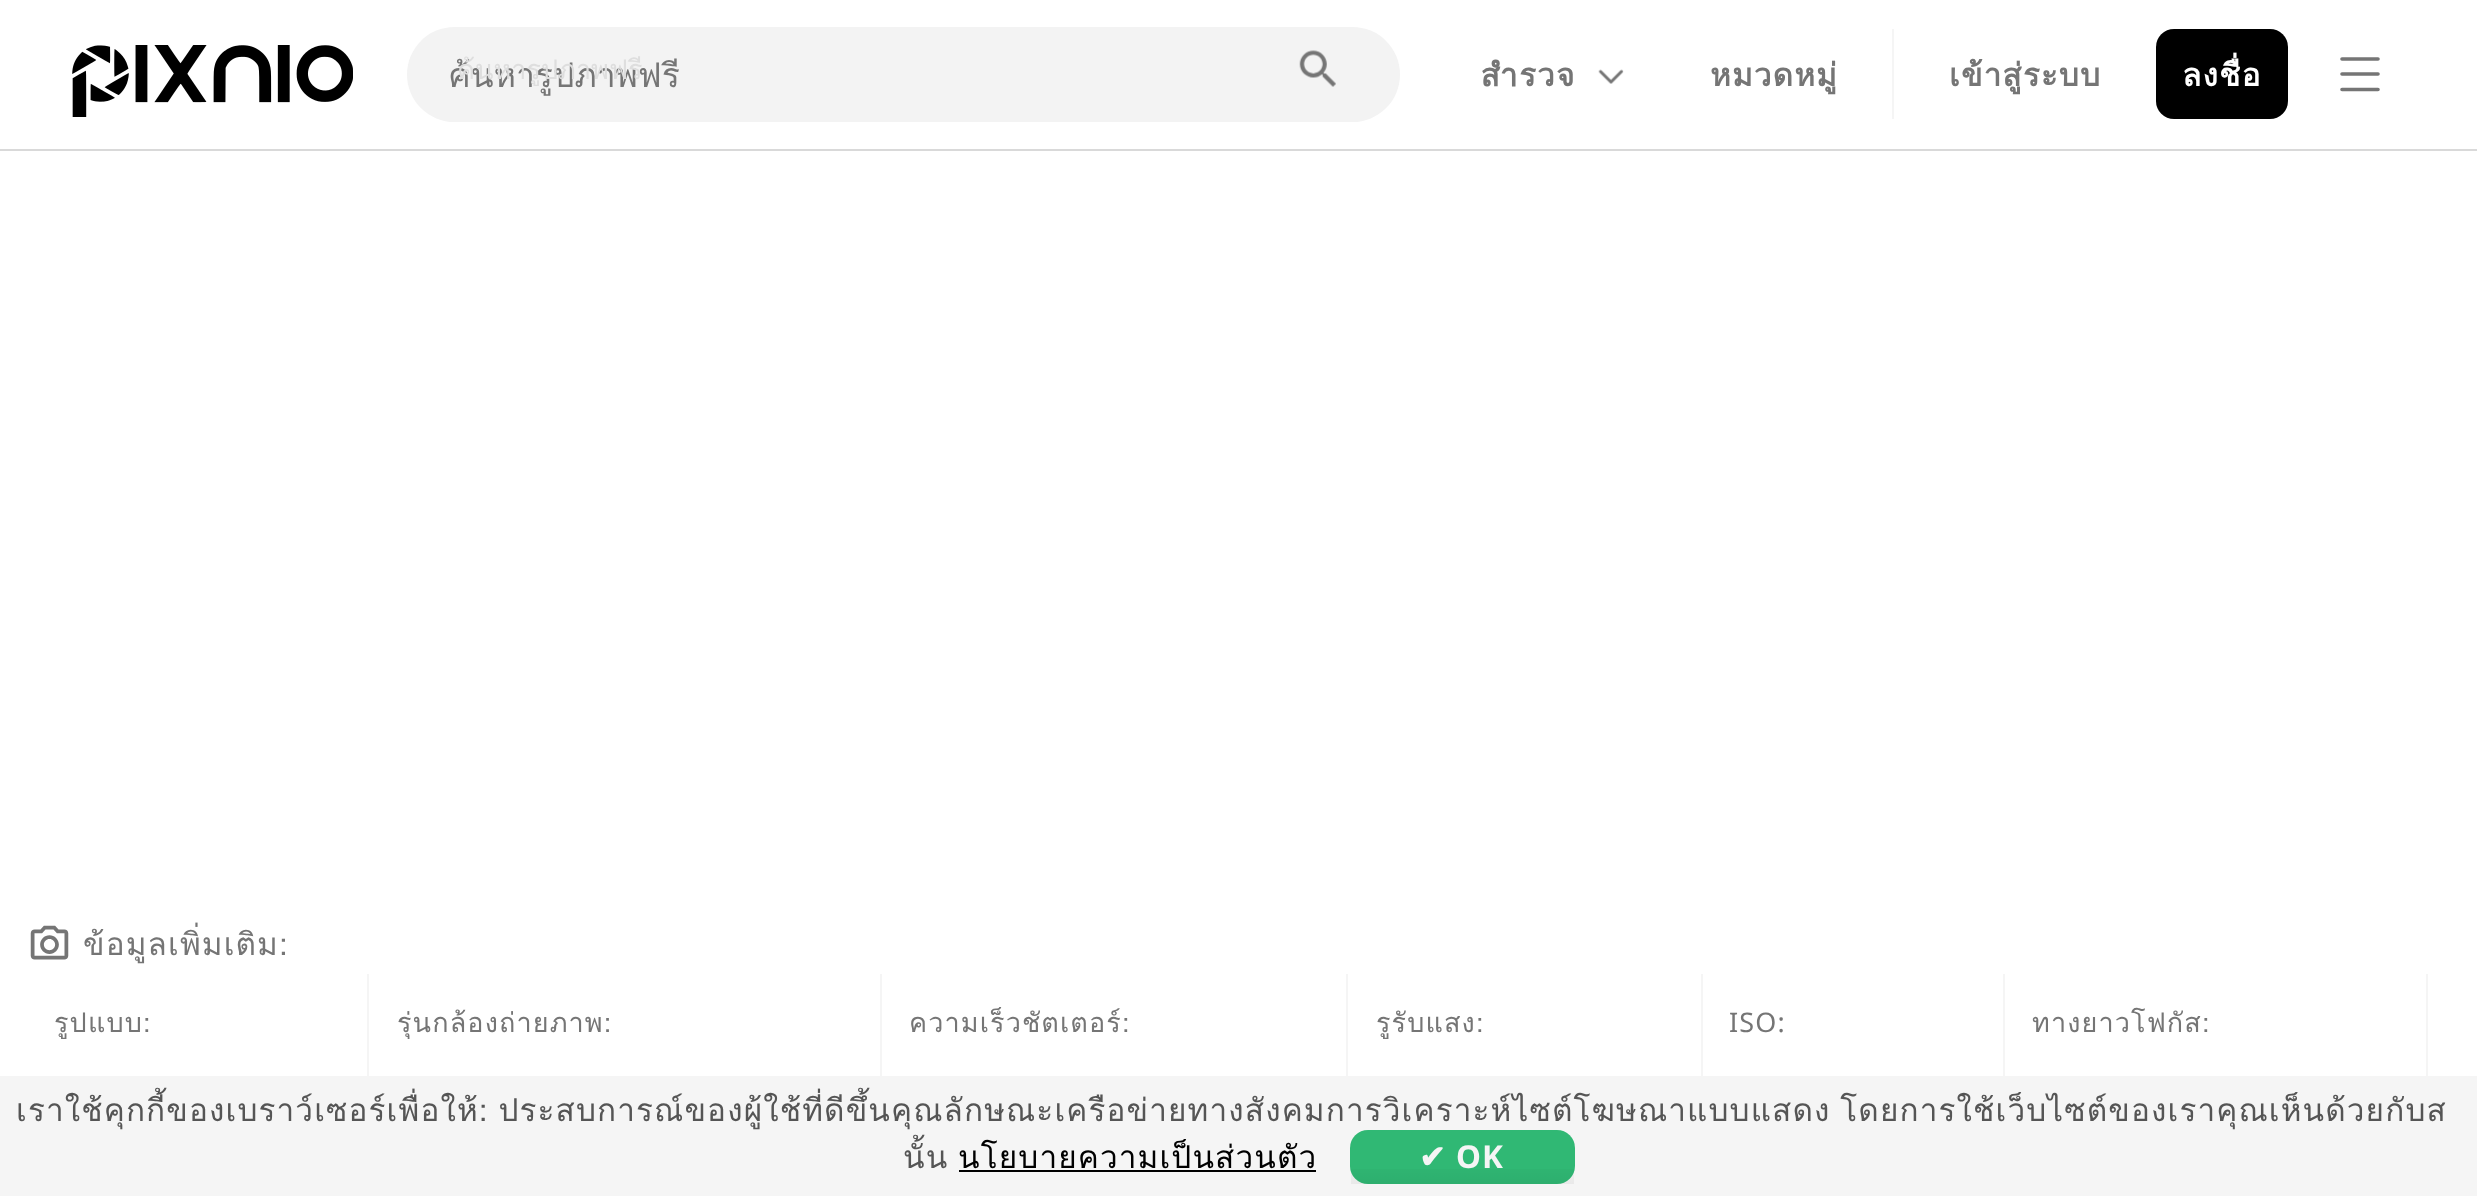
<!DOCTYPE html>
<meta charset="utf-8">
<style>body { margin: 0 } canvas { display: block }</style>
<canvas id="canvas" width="2477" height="1196"></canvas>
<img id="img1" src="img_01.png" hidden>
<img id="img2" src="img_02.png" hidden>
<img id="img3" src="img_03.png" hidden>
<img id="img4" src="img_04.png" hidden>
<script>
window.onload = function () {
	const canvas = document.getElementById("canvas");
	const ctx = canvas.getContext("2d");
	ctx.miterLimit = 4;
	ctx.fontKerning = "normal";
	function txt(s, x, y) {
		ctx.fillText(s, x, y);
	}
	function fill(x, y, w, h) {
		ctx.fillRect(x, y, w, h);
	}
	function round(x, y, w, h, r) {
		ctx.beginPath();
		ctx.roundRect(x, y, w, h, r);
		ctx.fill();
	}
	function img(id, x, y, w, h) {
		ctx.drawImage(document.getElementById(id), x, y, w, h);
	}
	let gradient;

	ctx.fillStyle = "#FFFFFF";
	fill(0, 0, 2477, 1196);
	ctx.fillStyle = "#D9D9D9";
	fill(0, 149, 2477, 2);
	img("img1", 72, 45, 281, 72);
	ctx.fillStyle = "#F3F3F3";
	round(407, 27, 993, 95, 47.5);
	img("img2", 1299, 50, 37, 37);
	img("img3", 1598, 69, 26, 15);
	ctx.fillStyle = "#F5F5F5";
	fill(1892, 29, 2, 90);
	ctx.fillStyle = "#000000";
	round(2156, 29, 132, 90, 18);
	ctx.beginPath();
	ctx.moveTo(2342, 59);
	ctx.lineTo(2378, 59);
	ctx.moveTo(2342, 74);
	ctx.lineTo(2378, 74);
	ctx.moveTo(2378, 89.5);
	ctx.lineTo(2342, 89.5);
	ctx.strokeStyle = "#757575";
	ctx.lineWidth = 3.6;
	ctx.lineCap = "round";
	ctx.stroke();
	img("img4", 30, 925, 39, 35);
	ctx.fillStyle = "#F5F5F5";
	fill(367, 974, 2, 102);
	fill(880, 974, 2, 102);
	fill(1346, 974, 2, 102);
	fill(1701, 974, 2, 102);
	fill(2003, 974, 2, 102);
	fill(2426, 974, 2, 102);
	fill(0, 1076, 2477, 120);
	ctx.fillStyle = "#000000";
	fill(959, 1170, 357, 2);
	ctx.fillStyle = "#30B874";
	round(1350, 1130, 225, 54, 18);
	gradient = ctx.createLinearGradient(1463, 1130, 1463, 1184);
	gradient.addColorStop(0.5, "rgba(0, 0, 0, 0)");
	gradient.addColorStop(1, "rgba(0, 0, 0, 0.05)");
	ctx.fillStyle = gradient;
	fill(1351, 1169, 223, 15);
	ctx.save();
	ctx.beginPath();
	ctx.rect(448, 50, 765, 54);
	ctx.clip();
	ctx.font = "33.75px Loma";
	ctx.fillStyle = "#757575";
	txt("ค้นหารูปภาพฟรี", 448, 87);
	ctx.restore();
	ctx.font = "27px Loma";
	ctx.fillStyle = "#DEDEDE";
	txt("ค้นหารูปภาพฟรี", 457, 79);
	ctx.letterSpacing = "1.12px";
	ctx.font = "bold 31.5px Loma";
	ctx.fillStyle = "#757575";
	txt("สำรวจ", 1481, 86);
	txt("หมวดหมู่", 1710, 86);
	txt("เข้าสู่ระบบ", 1949, 86);
	ctx.fillStyle = "#FFFFFF";
	txt("ลงชื่อ", 2182, 86);
	ctx.font = "31.5px Loma";
	ctx.fillStyle = "#757575";
	txt("ข้อมูลเพิ่มเติม:", 83, 955);
	ctx.font = "27px Loma";
	txt("รูปแบบ:", 54, 1032);
	txt("รุ่นกล้องถ่ายภาพ:", 397, 1032);
	txt("ความเร็วชัตเตอร์:", 909, 1032);
	txt("รูรับแสง:", 1376, 1032);
	ctx.font = "27px Noto Sans";
	txt("ISO:", 1729, 1032);
	ctx.font = "27px Loma";
	txt("ทางยาวโฟกัส:", 2032, 1032);
	ctx.wordSpacing = "-2px";
	ctx.font = "31.5px Loma";
	ctx.fillStyle = "#555555";
	txt("เราใช้คุกกี้ของเบราว์เซอร์เพื่อให้: ประสบการณ์ของผู้ใช้ที่ดีขึ้นคุณลักษณะเครือข่ายทางสังคมการวิเคราะห์ไซต์โฆษณาแบบแสดง โดยการใช้เว็บไซต์ของเราคุณเห็นด้วยกับส", 16, 1121);
	ctx.wordSpacing = "0px";
	txt("นั้น", 903, 1168);
	ctx.fillStyle = "#000000";
	txt("นโยบายความเป็นส่วนตัว", 958, 1168);
	ctx.font = "bold 31.5px DejaVu Sans";
	ctx.fillStyle = "#F5F5F5";
	txt("✔", 1419, 1168);
	ctx.font = "bold 31.5px Noto Sans";
	txt("OK", 1456, 1168);
};
</script>
